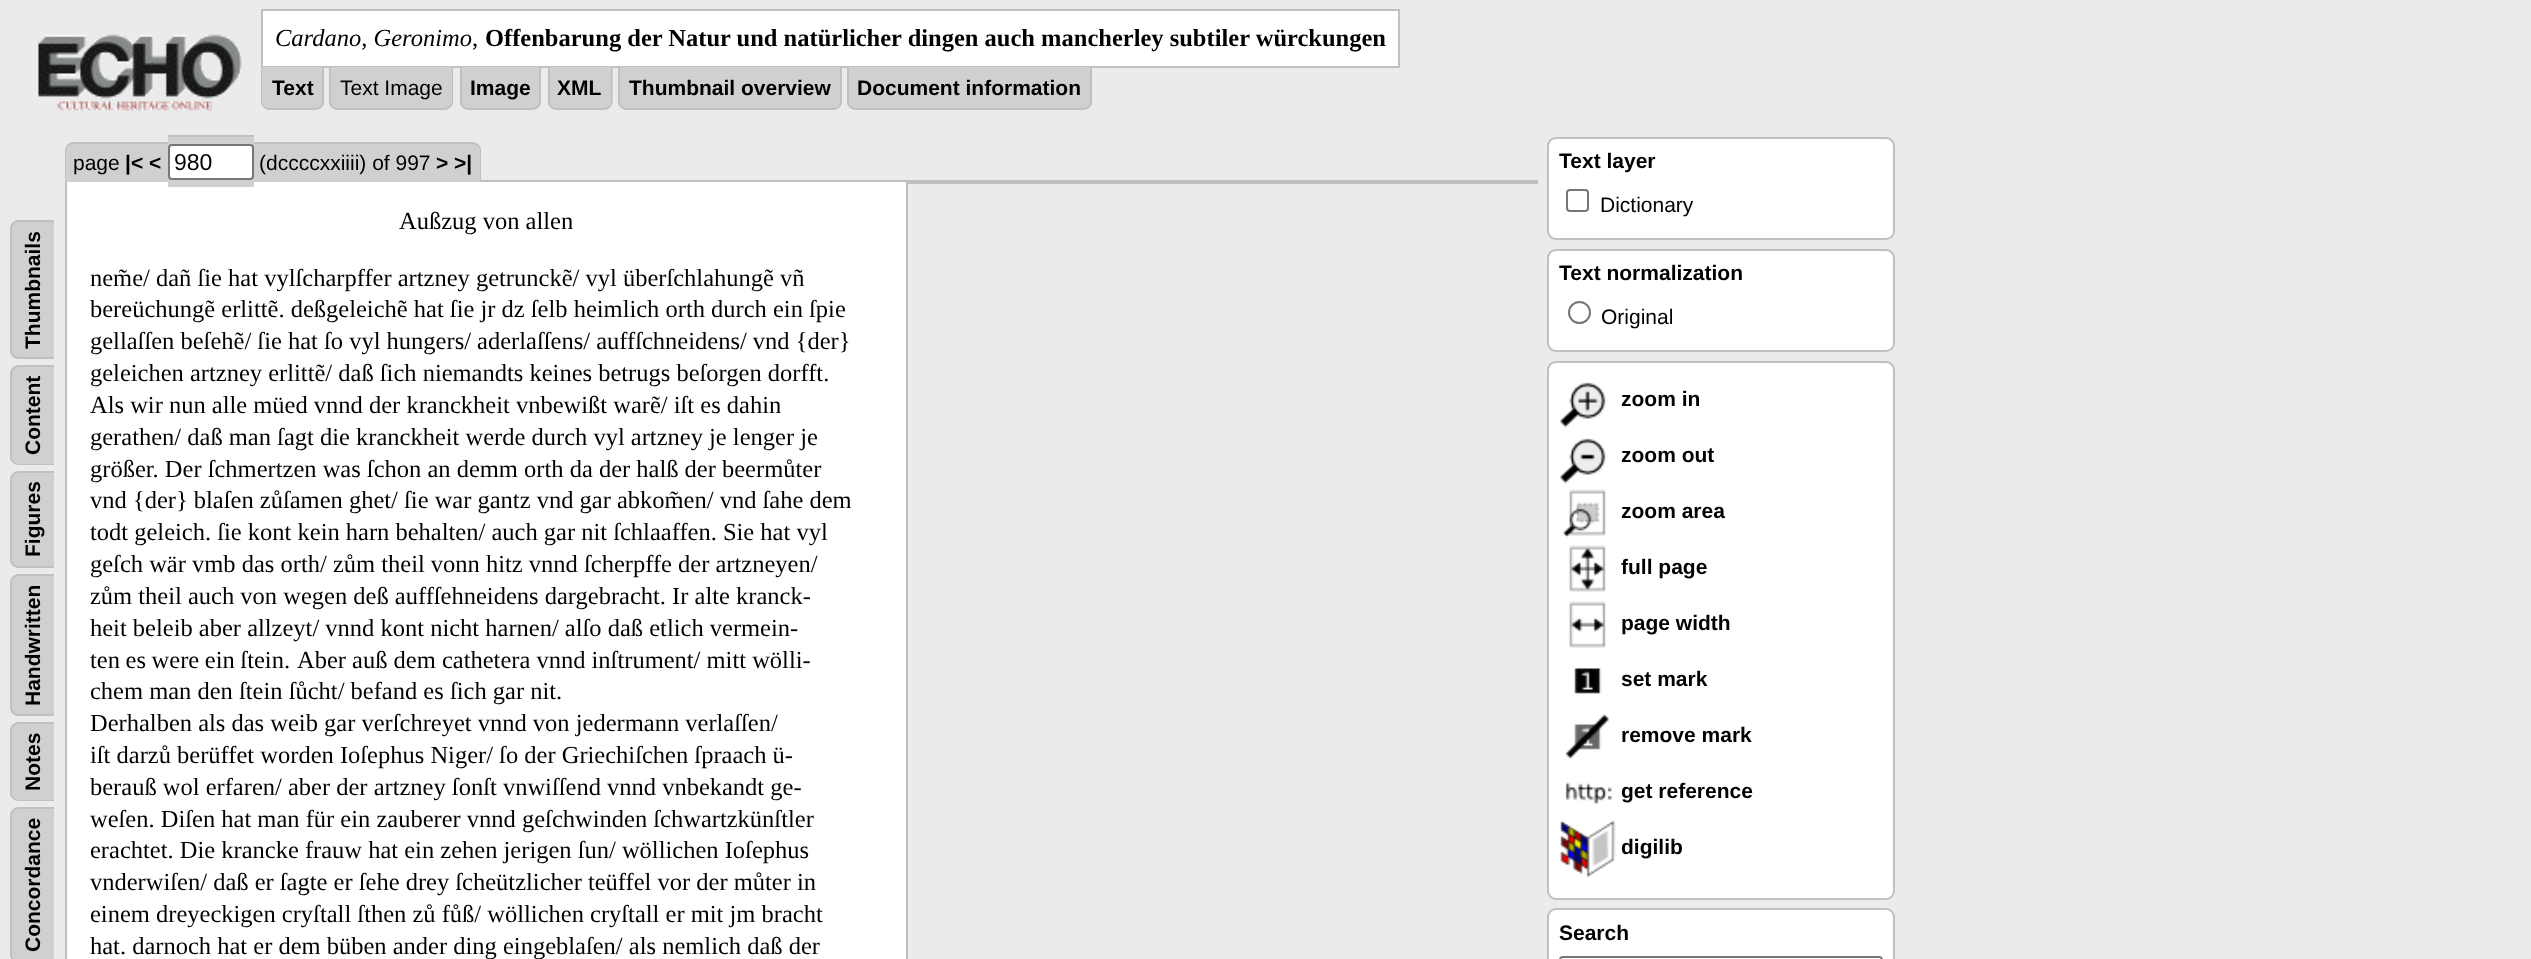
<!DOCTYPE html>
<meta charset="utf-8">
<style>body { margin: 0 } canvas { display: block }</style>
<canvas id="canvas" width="2531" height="959"></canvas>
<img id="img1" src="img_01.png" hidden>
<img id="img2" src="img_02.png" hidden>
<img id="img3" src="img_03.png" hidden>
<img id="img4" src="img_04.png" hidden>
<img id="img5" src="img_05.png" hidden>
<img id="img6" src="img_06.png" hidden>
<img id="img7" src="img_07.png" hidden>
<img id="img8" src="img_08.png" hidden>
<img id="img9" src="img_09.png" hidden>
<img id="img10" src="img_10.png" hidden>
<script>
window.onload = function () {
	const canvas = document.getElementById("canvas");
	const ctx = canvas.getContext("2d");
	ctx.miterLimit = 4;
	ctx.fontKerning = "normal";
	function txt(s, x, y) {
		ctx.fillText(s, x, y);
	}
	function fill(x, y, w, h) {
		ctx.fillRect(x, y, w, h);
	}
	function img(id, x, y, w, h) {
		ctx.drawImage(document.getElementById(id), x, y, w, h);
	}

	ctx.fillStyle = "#EBEBEB";
	fill(0, 0, 2531, 959);
	img("img1", 38, 34, 204, 77);
	ctx.fillStyle = "#FFFFFF";
	ctx.beginPath();
	ctx.rect(262, 10, 1137, 57);
	ctx.fill();
	ctx.strokeStyle = "#C0C0C0";
	ctx.lineWidth = 2;
	ctx.stroke();
	ctx.fillStyle = "#D0D0D0";
	ctx.beginPath();
	ctx.roundRect(261, 67, 63, 43, [0, 0, 9, 9]);
	ctx.fill();
	ctx.fillStyle = "#C0C0C0";
	ctx.beginPath();
	ctx.moveTo(261, 66);
	ctx.lineTo(324, 66);
	ctx.lineTo(324, 102);
	ctx.bezierCurveTo(324, 106, 320, 110, 315, 110);
	ctx.lineTo(270, 110);
	ctx.bezierCurveTo(265, 110, 261, 106, 261, 102);
	ctx.closePath();
	ctx.moveTo(262, 66);
	ctx.lineTo(322, 66);
	ctx.lineTo(322, 102);
	ctx.bezierCurveTo(322, 105, 319, 108, 315, 108);
	ctx.lineTo(270, 108);
	ctx.bezierCurveTo(266, 108, 262, 105, 262, 102);
	ctx.closePath();
	ctx.fill("evenodd");
	ctx.fillStyle = "#D0D0D0";
	ctx.beginPath();
	ctx.roundRect(329, 67, 124, 43, [0, 0, 9, 9]);
	ctx.fill();
	ctx.fillStyle = "#C0C0C0";
	ctx.beginPath();
	ctx.moveTo(329, 66);
	ctx.lineTo(453, 66);
	ctx.lineTo(453, 102);
	ctx.bezierCurveTo(453, 106, 449, 110, 444, 110);
	ctx.lineTo(338, 110);
	ctx.bezierCurveTo(333, 110, 329, 106, 329, 102);
	ctx.closePath();
	ctx.moveTo(331, 66);
	ctx.lineTo(452, 66);
	ctx.lineTo(452, 102);
	ctx.bezierCurveTo(452, 105, 448, 108, 444, 108);
	ctx.lineTo(338, 108);
	ctx.bezierCurveTo(334, 108, 331, 105, 331, 102);
	ctx.closePath();
	ctx.fill("evenodd");
	ctx.fillStyle = "#D0D0D0";
	ctx.beginPath();
	ctx.roundRect(460, 67, 81, 43, [0, 0, 9, 9]);
	ctx.fill();
	ctx.fillStyle = "#C0C0C0";
	ctx.beginPath();
	ctx.moveTo(460, 66);
	ctx.lineTo(541, 66);
	ctx.lineTo(541, 102);
	ctx.bezierCurveTo(541, 106, 537, 110, 532, 110);
	ctx.lineTo(469, 110);
	ctx.bezierCurveTo(464, 110, 460, 106, 460, 102);
	ctx.closePath();
	ctx.moveTo(462, 66);
	ctx.lineTo(539, 66);
	ctx.lineTo(539, 102);
	ctx.bezierCurveTo(539, 105, 536, 108, 532, 108);
	ctx.lineTo(469, 108);
	ctx.bezierCurveTo(465, 108, 462, 105, 462, 102);
	ctx.closePath();
	ctx.fill("evenodd");
	ctx.fillStyle = "#D0D0D0";
	ctx.beginPath();
	ctx.roundRect(548, 67, 65, 43, [0, 0, 9, 9]);
	ctx.fill();
	ctx.fillStyle = "#C0C0C0";
	ctx.beginPath();
	ctx.moveTo(548, 66);
	ctx.lineTo(612, 66);
	ctx.lineTo(612, 102);
	ctx.bezierCurveTo(612, 106, 609, 110, 604, 110);
	ctx.lineTo(556, 110);
	ctx.bezierCurveTo(552, 110, 548, 106, 548, 102);
	ctx.closePath();
	ctx.moveTo(550, 66);
	ctx.lineTo(611, 66);
	ctx.lineTo(611, 102);
	ctx.bezierCurveTo(611, 105, 608, 108, 604, 108);
	ctx.lineTo(556, 108);
	ctx.bezierCurveTo(553, 108, 550, 105, 550, 102);
	ctx.closePath();
	ctx.fill("evenodd");
	ctx.fillStyle = "#D0D0D0";
	ctx.beginPath();
	ctx.roundRect(618, 67, 224, 43, [0, 0, 9, 9]);
	ctx.fill();
	ctx.fillStyle = "#C0C0C0";
	ctx.beginPath();
	ctx.moveTo(618, 66);
	ctx.lineTo(842, 66);
	ctx.lineTo(842, 102);
	ctx.bezierCurveTo(842, 106, 838, 110, 833, 110);
	ctx.lineTo(626, 110);
	ctx.bezierCurveTo(622, 110, 618, 106, 618, 102);
	ctx.closePath();
	ctx.moveTo(620, 66);
	ctx.lineTo(840, 66);
	ctx.lineTo(840, 102);
	ctx.bezierCurveTo(840, 105, 837, 108, 833, 108);
	ctx.lineTo(626, 108);
	ctx.bezierCurveTo(623, 108, 620, 105, 620, 102);
	ctx.closePath();
	ctx.fill("evenodd");
	ctx.fillStyle = "#D0D0D0";
	ctx.beginPath();
	ctx.roundRect(847, 67, 245, 43, [0, 0, 9, 9]);
	ctx.fill();
	ctx.fillStyle = "#C0C0C0";
	ctx.beginPath();
	ctx.moveTo(847, 66);
	ctx.lineTo(1092, 66);
	ctx.lineTo(1092, 102);
	ctx.bezierCurveTo(1092, 106, 1088, 110, 1083, 110);
	ctx.lineTo(856, 110);
	ctx.bezierCurveTo(851, 110, 847, 106, 847, 102);
	ctx.closePath();
	ctx.moveTo(849, 66);
	ctx.lineTo(1090, 66);
	ctx.lineTo(1090, 102);
	ctx.bezierCurveTo(1090, 105, 1087, 108, 1083, 108);
	ctx.lineTo(856, 108);
	ctx.bezierCurveTo(852, 108, 849, 105, 849, 102);
	ctx.closePath();
	ctx.fill("evenodd");
	ctx.fillStyle = "#D0D0D0";
	ctx.beginPath();
	ctx.moveTo(10, 350);
	ctx.lineTo(10, 229);
	ctx.bezierCurveTo(10, 224, 14, 220, 19, 220);
	ctx.lineTo(54, 220);
	ctx.lineTo(54, 359);
	ctx.lineTo(19, 359);
	ctx.bezierCurveTo(14, 359, 10, 355, 10, 350);
	ctx.closePath();
	ctx.fill();
	ctx.fillStyle = "#C0C0C0";
	ctx.beginPath();
	ctx.moveTo(10, 350);
	ctx.lineTo(10, 229);
	ctx.bezierCurveTo(10, 224, 14, 220, 19, 220);
	ctx.lineTo(54, 220);
	ctx.lineTo(54, 359);
	ctx.lineTo(19, 359);
	ctx.bezierCurveTo(14, 359, 10, 355, 10, 350);
	ctx.closePath();
	ctx.moveTo(12, 350);
	ctx.lineTo(12, 229);
	ctx.bezierCurveTo(12, 225, 15, 222, 19, 222);
	ctx.lineTo(54, 222);
	ctx.lineTo(54, 357);
	ctx.lineTo(19, 357);
	ctx.bezierCurveTo(15, 357, 12, 354, 12, 350);
	ctx.closePath();
	ctx.fill("evenodd");
	ctx.fillStyle = "#D0D0D0";
	ctx.beginPath();
	ctx.moveTo(10, 457);
	ctx.lineTo(10, 374);
	ctx.bezierCurveTo(10, 369, 14, 365, 19, 365);
	ctx.lineTo(54, 365);
	ctx.lineTo(54, 465);
	ctx.lineTo(19, 465);
	ctx.bezierCurveTo(14, 465, 10, 461, 10, 457);
	ctx.closePath();
	ctx.fill();
	ctx.fillStyle = "#C0C0C0";
	ctx.beginPath();
	ctx.moveTo(10, 457);
	ctx.lineTo(10, 374);
	ctx.bezierCurveTo(10, 369, 14, 365, 19, 365);
	ctx.lineTo(54, 365);
	ctx.lineTo(54, 465);
	ctx.lineTo(19, 465);
	ctx.bezierCurveTo(14, 465, 10, 461, 10, 457);
	ctx.closePath();
	ctx.moveTo(12, 457);
	ctx.lineTo(12, 374);
	ctx.bezierCurveTo(12, 370, 15, 367, 19, 367);
	ctx.lineTo(54, 367);
	ctx.lineTo(54, 464);
	ctx.lineTo(19, 464);
	ctx.bezierCurveTo(15, 464, 12, 460, 12, 457);
	ctx.closePath();
	ctx.fill("evenodd");
	ctx.fillStyle = "#D0D0D0";
	ctx.beginPath();
	ctx.moveTo(10, 559);
	ctx.lineTo(10, 480);
	ctx.bezierCurveTo(10, 475, 14, 471, 19, 471);
	ctx.lineTo(54, 471);
	ctx.lineTo(54, 568);
	ctx.lineTo(19, 568);
	ctx.bezierCurveTo(14, 568, 10, 564, 10, 559);
	ctx.closePath();
	ctx.fill();
	ctx.fillStyle = "#C0C0C0";
	ctx.beginPath();
	ctx.moveTo(10, 559);
	ctx.lineTo(10, 480);
	ctx.bezierCurveTo(10, 475, 14, 471, 19, 471);
	ctx.lineTo(54, 471);
	ctx.lineTo(54, 568);
	ctx.lineTo(19, 568);
	ctx.bezierCurveTo(14, 568, 10, 564, 10, 559);
	ctx.closePath();
	ctx.moveTo(12, 559);
	ctx.lineTo(12, 480);
	ctx.bezierCurveTo(12, 476, 15, 473, 19, 473);
	ctx.lineTo(54, 473);
	ctx.lineTo(54, 566);
	ctx.lineTo(19, 566);
	ctx.bezierCurveTo(15, 566, 12, 563, 12, 559);
	ctx.closePath();
	ctx.fill("evenodd");
	ctx.fillStyle = "#D0D0D0";
	ctx.beginPath();
	ctx.moveTo(10, 707);
	ctx.lineTo(10, 583);
	ctx.bezierCurveTo(10, 578, 14, 574, 19, 574);
	ctx.lineTo(54, 574);
	ctx.lineTo(54, 716);
	ctx.lineTo(19, 716);
	ctx.bezierCurveTo(14, 716, 10, 712, 10, 707);
	ctx.closePath();
	ctx.fill();
	ctx.fillStyle = "#C0C0C0";
	ctx.beginPath();
	ctx.moveTo(10, 707);
	ctx.lineTo(10, 583);
	ctx.bezierCurveTo(10, 578, 14, 574, 19, 574);
	ctx.lineTo(54, 574);
	ctx.lineTo(54, 716);
	ctx.lineTo(19, 716);
	ctx.bezierCurveTo(14, 716, 10, 712, 10, 707);
	ctx.closePath();
	ctx.moveTo(12, 707);
	ctx.lineTo(12, 583);
	ctx.bezierCurveTo(12, 579, 15, 576, 19, 576);
	ctx.lineTo(54, 576);
	ctx.lineTo(54, 714);
	ctx.lineTo(19, 714);
	ctx.bezierCurveTo(15, 714, 12, 711, 12, 707);
	ctx.closePath();
	ctx.fill("evenodd");
	ctx.fillStyle = "#D0D0D0";
	ctx.beginPath();
	ctx.moveTo(10, 793);
	ctx.lineTo(10, 731);
	ctx.bezierCurveTo(10, 726, 14, 722, 19, 722);
	ctx.lineTo(54, 722);
	ctx.lineTo(54, 801);
	ctx.lineTo(19, 801);
	ctx.bezierCurveTo(14, 801, 10, 797, 10, 793);
	ctx.closePath();
	ctx.fill();
	ctx.fillStyle = "#C0C0C0";
	ctx.beginPath();
	ctx.moveTo(10, 793);
	ctx.lineTo(10, 731);
	ctx.bezierCurveTo(10, 726, 14, 722, 19, 722);
	ctx.lineTo(54, 722);
	ctx.lineTo(54, 801);
	ctx.lineTo(19, 801);
	ctx.bezierCurveTo(14, 801, 10, 797, 10, 793);
	ctx.closePath();
	ctx.moveTo(12, 793);
	ctx.lineTo(12, 731);
	ctx.bezierCurveTo(12, 727, 15, 724, 19, 724);
	ctx.lineTo(54, 724);
	ctx.lineTo(54, 800);
	ctx.lineTo(19, 800);
	ctx.bezierCurveTo(15, 800, 12, 797, 12, 793);
	ctx.closePath();
	ctx.fill("evenodd");
	ctx.fillStyle = "#D0D0D0";
	ctx.beginPath();
	ctx.moveTo(10, 954);
	ctx.lineTo(10, 816);
	ctx.bezierCurveTo(10, 811, 14, 807, 19, 807);
	ctx.lineTo(54, 807);
	ctx.lineTo(54, 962);
	ctx.lineTo(19, 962);
	ctx.bezierCurveTo(14, 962, 10, 959, 10, 954);
	ctx.closePath();
	ctx.fill();
	ctx.fillStyle = "#C0C0C0";
	ctx.beginPath();
	ctx.moveTo(10, 954);
	ctx.lineTo(10, 816);
	ctx.bezierCurveTo(10, 811, 14, 807, 19, 807);
	ctx.lineTo(54, 807);
	ctx.lineTo(54, 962);
	ctx.lineTo(19, 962);
	ctx.bezierCurveTo(14, 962, 10, 959, 10, 954);
	ctx.closePath();
	ctx.moveTo(12, 954);
	ctx.lineTo(12, 816);
	ctx.bezierCurveTo(12, 812, 15, 809, 19, 809);
	ctx.lineTo(54, 809);
	ctx.lineTo(54, 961);
	ctx.lineTo(19, 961);
	ctx.bezierCurveTo(15, 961, 12, 958, 12, 954);
	ctx.closePath();
	ctx.fill("evenodd");
	ctx.fillStyle = "#FFFFFF";
	ctx.beginPath();
	ctx.rect(66, 181, 841, 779);
	ctx.fill();
	ctx.stroke();
	ctx.fillStyle = "#D0D0D0";
	ctx.beginPath();
	ctx.roundRect(65, 142, 61, 40, [9, 0, 0, 0]);
	ctx.fill();
	ctx.fillStyle = "#C0C0C0";
	ctx.beginPath();
	ctx.moveTo(74, 142);
	ctx.lineTo(126, 142);
	ctx.lineTo(126, 182);
	ctx.lineTo(65, 182);
	ctx.lineTo(65, 150);
	ctx.bezierCurveTo(65, 146, 69, 142, 74, 142);
	ctx.closePath();
	ctx.moveTo(74, 144);
	ctx.lineTo(126, 144);
	ctx.lineTo(126, 182);
	ctx.lineTo(66, 182);
	ctx.lineTo(66, 150);
	ctx.bezierCurveTo(66, 147, 70, 144, 74, 144);
	ctx.closePath();
	ctx.fill("evenodd");
	ctx.fillStyle = "#D0D0D0";
	fill(126, 144, 18, 38);
	ctx.fillStyle = "#C0C0C0";
	fill(126, 142, 18, 2);
	ctx.fillStyle = "#D0D0D0";
	fill(144, 142, 5, 40);
	ctx.fillStyle = "#C0C0C0";
	fill(144, 142, 17, 2);
	ctx.fillStyle = "#D0D0D0";
	fill(149, 144, 12, 38);
	fill(161, 142, 7, 40);
	ctx.fillStyle = "#C0C0C0";
	fill(161, 142, 7, 2);
	ctx.fillStyle = "#D0D0D0";
	fill(168, 137, 86, 50);
	ctx.fillStyle = "#C0C0C0";
	fill(168, 135, 86, 2);
	ctx.fillStyle = "#D0D0D0";
	fill(254, 142, 5, 40);
	ctx.fillStyle = "#C0C0C0";
	fill(254, 142, 194, 2);
	ctx.fillStyle = "#D0D0D0";
	fill(259, 144, 189, 38);
	fill(448, 142, 7, 40);
	ctx.fillStyle = "#C0C0C0";
	fill(448, 142, 7, 2);
	ctx.fillStyle = "#D0D0D0";
	ctx.beginPath();
	ctx.roundRect(455, 142, 26, 40, [0, 9, 0, 0]);
	ctx.fill();
	ctx.fillStyle = "#C0C0C0";
	ctx.beginPath();
	ctx.moveTo(455, 142);
	ctx.lineTo(472, 142);
	ctx.bezierCurveTo(477, 142, 481, 146, 481, 150);
	ctx.lineTo(481, 182);
	ctx.lineTo(455, 182);
	ctx.closePath();
	ctx.moveTo(455, 144);
	ctx.lineTo(472, 144);
	ctx.bezierCurveTo(476, 144, 480, 147, 480, 150);
	ctx.lineTo(480, 182);
	ctx.lineTo(455, 182);
	ctx.closePath();
	ctx.fill("evenodd");
	ctx.fillStyle = "#FFFFFF";
	ctx.beginPath();
	ctx.roundRect(169, 145, 84, 34, 3);
	ctx.fill();
	ctx.strokeStyle = "#767676";
	ctx.stroke();
	ctx.fillStyle = "#C0C0C0";
	fill(908, 180, 630, 4);
	ctx.fillStyle = "#FFFFFF";
	ctx.beginPath();
	ctx.roundRect(1548, 138, 346, 101, 8);
	ctx.fill();
	ctx.strokeStyle = "#C0C0C0";
	ctx.stroke();
	ctx.beginPath();
	ctx.roundRect(1567, 190, 21, 21, 3);
	ctx.strokeStyle = "#767676";
	ctx.stroke();
	ctx.beginPath();
	ctx.roundRect(1548, 250, 346, 101, 8);
	ctx.fill();
	ctx.strokeStyle = "#C0C0C0";
	ctx.stroke();
	ctx.beginPath();
	ctx.arc(1579.5, 312.5, 10.5, 0, Math.PI * 2);
	ctx.strokeStyle = "#767676";
	ctx.stroke();
	ctx.beginPath();
	ctx.roundRect(1548, 362, 346, 537, 8);
	ctx.fill();
	ctx.strokeStyle = "#C0C0C0";
	ctx.stroke();
	img("img2", 1559, 382, 47, 46);
	img("img3", 1559, 438, 47, 46);
	img("img4", 1562, 489, 44, 49);
	img("img5", 1569, 545, 37, 47);
	img("img6", 1569, 601, 37, 47);
	img("img7", 1574, 668, 28, 26);
	img("img8", 1565, 714, 44, 45);
	img("img9", 1565, 782, 48, 22);
	img("img10", 1560, 820, 56, 57);
	ctx.beginPath();
	ctx.roundRect(1548, 909, 346, 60, 8);
	ctx.fill();
	ctx.stroke();
	ctx.beginPath();
	ctx.roundRect(1560, 957, 322, 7, 3);
	ctx.strokeStyle = "#767676";
	ctx.stroke();
	ctx.font = "italic 24.5px Liberation Serif";
	ctx.fillStyle = "#000000";
	txt("Cardano, Geronimo", 275, 46);
	ctx.font = "24.5px Liberation Serif";
	txt(",", 472, 46);
	ctx.font = "bold 24.5px Liberation Serif";
	txt("Offenbarung der Natur und natürlicher dingen auch mancherley subtiler würckungen", 485, 46);
	ctx.font = "bold 21px Liberation Sans";
	txt("Text", 272, 95);
	ctx.font = "21px Liberation Sans";
	txt("Text Image", 340, 95);
	ctx.font = "bold 21px Liberation Sans";
	txt("Image", 470, 95);
	txt("XML", 557, 95);
	txt("Thumbnail overview", 629, 95);
	txt("Document information", 857, 95);
	ctx.save();
	ctx.translate(40, 349);
	ctx.rotate(-90 * Math.PI / 180);
	ctx.fillText("Thumbnails", 0, 0);
	ctx.restore();
	ctx.save();
	ctx.translate(40, 455);
	ctx.rotate(-90 * Math.PI / 180);
	ctx.fillText("Content", 0, 0);
	ctx.restore();
	ctx.save();
	ctx.translate(40, 557);
	ctx.rotate(-90 * Math.PI / 180);
	ctx.fillText("Figures", 0, 0);
	ctx.restore();
	ctx.save();
	ctx.translate(40, 706);
	ctx.rotate(-90 * Math.PI / 180);
	ctx.fillText("Handwritten", 0, 0);
	ctx.restore();
	ctx.save();
	ctx.translate(40, 791);
	ctx.rotate(-90 * Math.PI / 180);
	ctx.fillText("Notes", 0, 0);
	ctx.restore();
	ctx.save();
	ctx.translate(40, 952);
	ctx.rotate(-90 * Math.PI / 180);
	ctx.fillText("Concordance", 0, 0);
	ctx.restore();
	ctx.font = "21px Liberation Sans";
	txt("page", 73, 170);
	ctx.font = "bold 21px Liberation Sans";
	txt("|< <", 125, 170);
	ctx.font = "23px Liberation Sans";
	txt("980", 174, 170);
	ctx.font = "21px Liberation Sans";
	txt("(dccccxxiiii) of 997", 259, 170);
	ctx.font = "bold 21px Liberation Sans";
	txt("> >|", 436, 170);
	ctx.font = "24.5px Liberation Serif";
	txt("Außzug von allen", 399, 229);
	txt("nem̃e/ dañ ſie hat vylſcharpffer artzney getrunckẽ/ vyl überſchlahungẽ vñ", 90, 286);
	txt("bereüchungẽ erlittẽ. deßgeleichẽ hat ſie jr dz ſelb heimlich orth durch ein ſpie", 90, 317);
	txt("gellaſſen beſehẽ/ ſie hat ſo vyl hungers/ aderlaſſens/ auffſchneidens/ vnd {der}", 90, 349);
	txt("geleichen artzney erlittẽ/ daß ſich niemandts keines betrugs beſorgen dorfft.", 90, 381);
	txt("Als wir nun alle müed vnnd der kranckheit vnbewißt warẽ/ iſt es dahin", 90, 413);
	txt("gerathen/ daß man ſagt die kranckheit werde durch vyl artzney je lenger je", 90, 445);
	txt("größer. Der ſchmertzen was ſchon an demm orth da der halß der beermůter", 90, 477);
	txt("vnd {der} blaſen zůſamen ghet/ ſie war gantz vnd gar abkom̃en/ vnd ſahe dem", 90, 508);
	txt("todt geleich. ſie kont kein harn behalten/ auch gar nit ſchlaaffen. Sie hat vyl", 90, 540);
	txt("geſch wär vmb das orth/ zům theil vonn hitz vnnd ſcherpffe der artzneyen/", 90, 572);
	txt("zům theil auch von wegen deß auffſehneidens dargebracht. Ir alte kranck-", 90, 604);
	txt("heit beleib aber allzeyt/ vnnd kont nicht harnen/ alſo daß etlich vermein-", 90, 636);
	ctx.wordSpacing = "-0.5px";
	txt("ten es were ein ſtein.", 90, 668);
	ctx.wordSpacing = "0px";
	txt("Aber auß dem cathetera vnnd inſtrument/ mitt wölli-", 297, 668);
	txt("chem man den ſtein ſůcht/ befand es ſich gar nit.", 90, 699);
	txt("Derhalben als das weib gar verſchreyet vnnd von jedermann verlaſſen/", 90, 731);
	txt("iſt darzů berüffet worden Ioſephus Niger/ ſo der Griechiſchen ſpraach ü-", 90, 763);
	txt("berauß wol erfaren/ aber der artzney ſonſt vnwiſſend vnnd vnbekandt ge-", 90, 795);
	txt("weſen. Diſen hat man für ein zauberer vnnd geſchwinden ſchwartzkünſtler", 90, 827);
	txt("erachtet. Die krancke frauw hat ein zehen jerigen ſun/ wöllichen Ioſephus", 90, 858);
	txt("vnderwiſen/ daß er ſagte er ſehe drey ſcheützlicher teüffel vor der můter in", 90, 890);
	txt("einem dreyeckigen cryſtall ſthen zů fůß/ wöllichen cryſtall er mit jm bracht", 90, 922);
	txt("hat. darnoch hat er dem büben ander ding eingeblaſen/ als nemlich daß der", 90, 954);
	ctx.font = "bold 21px Liberation Sans";
	txt("Text layer", 1559, 168);
	ctx.font = "21px Liberation Sans";
	txt("Dictionary", 1600, 212);
	ctx.font = "bold 21px Liberation Sans";
	txt("Text normalization", 1559, 280);
	ctx.font = "21px Liberation Sans";
	txt("Original", 1601, 324);
	ctx.font = "bold 21px Liberation Sans";
	txt("zoom in", 1621, 406);
	txt("zoom out", 1621, 462);
	txt("zoom area", 1621, 518);
	txt("full page", 1621, 574);
	txt("page width", 1621, 630);
	txt("set mark", 1621, 686);
	txt("remove mark", 1621, 742);
	txt("get reference", 1621, 798);
	txt("digilib", 1621, 854);
	txt("Search", 1559, 940);
};
</script>
